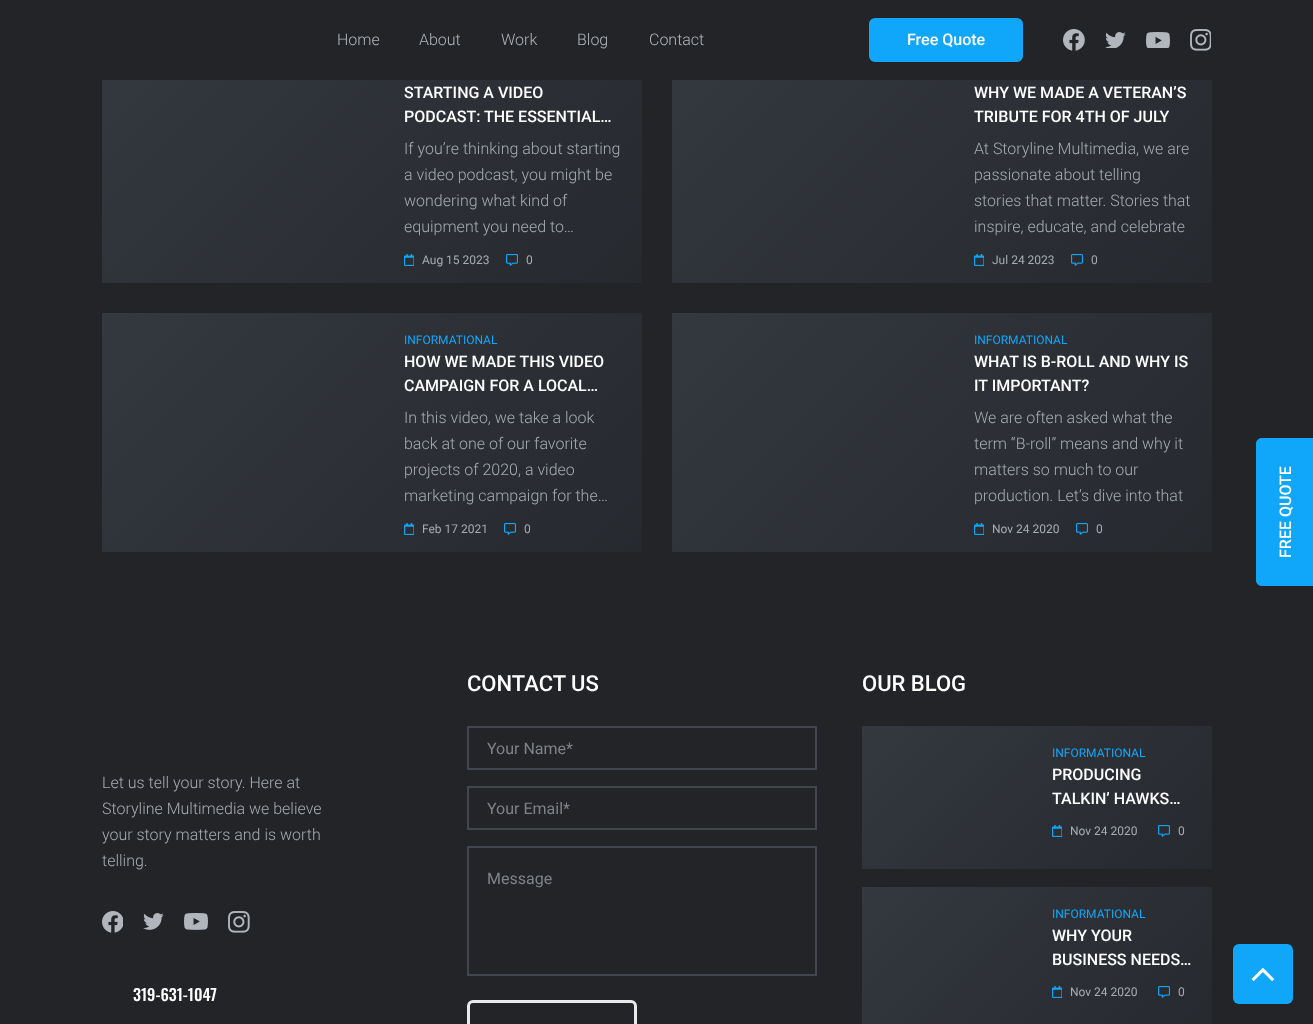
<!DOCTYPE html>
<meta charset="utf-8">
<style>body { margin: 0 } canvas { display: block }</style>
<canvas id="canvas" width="1313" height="1024"></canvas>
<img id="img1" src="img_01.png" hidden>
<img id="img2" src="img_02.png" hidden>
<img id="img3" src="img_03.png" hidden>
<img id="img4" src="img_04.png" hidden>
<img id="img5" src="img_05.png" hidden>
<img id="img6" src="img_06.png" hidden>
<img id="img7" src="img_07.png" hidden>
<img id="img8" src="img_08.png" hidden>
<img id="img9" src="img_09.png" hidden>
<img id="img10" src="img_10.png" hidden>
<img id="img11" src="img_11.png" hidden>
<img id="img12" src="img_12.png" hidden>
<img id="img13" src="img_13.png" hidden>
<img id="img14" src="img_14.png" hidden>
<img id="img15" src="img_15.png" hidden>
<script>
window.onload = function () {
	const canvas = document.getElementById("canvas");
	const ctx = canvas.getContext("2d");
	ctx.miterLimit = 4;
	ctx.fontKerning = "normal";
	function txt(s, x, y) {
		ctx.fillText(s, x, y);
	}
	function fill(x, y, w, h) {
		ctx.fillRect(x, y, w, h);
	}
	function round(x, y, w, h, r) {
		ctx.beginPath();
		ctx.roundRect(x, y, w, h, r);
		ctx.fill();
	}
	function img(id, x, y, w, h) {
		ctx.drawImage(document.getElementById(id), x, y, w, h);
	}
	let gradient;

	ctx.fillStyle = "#232428";
	fill(0, 0, 1313, 1024);
	ctx.fillStyle = "#10A7FB";
	ctx.beginPath();
	ctx.roundRect(870.5, 19.5, 151, 41, 4.5);
	ctx.fill();
	ctx.strokeStyle = "#10A7FB";
	ctx.lineWidth = 3;
	ctx.stroke();
	img("img1", 1063, 29, 22, 22);
	img("img2", 1105, 32, 21, 16);
	img("img3", 1146, 32, 24, 16);
	img("img4", 1190, 29, 21, 22);
	gradient = ctx.createLinearGradient(177, -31, 567, 358);
	gradient.addColorStop(0, "#34393F");
	gradient.addColorStop(1, "#26292E");
	ctx.fillStyle = gradient;
	fill(102, 80, 540, 203);
	img("img5", 404, 254, 10, 12);
	img("img6", 506, 254, 12, 12);
	gradient = ctx.createLinearGradient(747, -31, 1137, 358);
	gradient.addColorStop(0, "#34393F");
	gradient.addColorStop(1, "#26292E");
	ctx.fillStyle = gradient;
	fill(672, 80, 540, 203);
	img("img5", 974, 254, 10, 12);
	img("img7", 1071, 254, 12, 12);
	gradient = ctx.createLinearGradient(177, 238, 567, 627);
	gradient.addColorStop(0, "#34393F");
	gradient.addColorStop(1, "#26292E");
	ctx.fillStyle = gradient;
	fill(102, 313, 540, 239);
	img("img5", 404, 523, 10, 12);
	img("img8", 504, 523, 12, 12);
	gradient = ctx.createLinearGradient(747, 238, 1137, 627);
	gradient.addColorStop(0, "#34393F");
	gradient.addColorStop(1, "#26292E");
	ctx.fillStyle = gradient;
	fill(672, 313, 540, 239);
	img("img5", 974, 523, 10, 12);
	img("img6", 1076, 523, 12, 12);
	img("img9", 102, 911, 21, 22);
	img("img10", 143, 913, 21, 17);
	img("img11", 184, 913, 24, 17);
	img("img12", 228, 911, 22, 22);
	ctx.strokeStyle = "#42464F";
	ctx.lineWidth = 2;
	ctx.strokeRect(468, 727, 348, 42);
	ctx.strokeRect(468, 787, 348, 42);
	ctx.strokeRect(468, 847, 348, 128);
	ctx.beginPath();
	ctx.roundRect(468.5, 1001.5, 167, 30, 4.5);
	ctx.strokeStyle = "#EAEAEB";
	ctx.lineWidth = 3;
	ctx.stroke();
	gradient = ctx.createLinearGradient(914, 674, 1160, 921);
	gradient.addColorStop(0, "#34393F");
	gradient.addColorStop(1, "#26292E");
	ctx.fillStyle = gradient;
	fill(862, 726, 350, 143);
	img("img13", 1052, 825, 10, 12);
	img("img14", 1158, 825, 12, 12);
	gradient = ctx.createLinearGradient(914, 835, 1160, 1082);
	gradient.addColorStop(0, "#34393F");
	gradient.addColorStop(1, "#26292E");
	ctx.fillStyle = gradient;
	fill(862, 887, 350, 137);
	img("img13", 1052, 986, 10, 12);
	img("img14", 1158, 986, 12, 12);
	ctx.fillStyle = "#10A7FB";
	ctx.beginPath();
	ctx.moveTo(1256, 580);
	ctx.lineTo(1256, 444);
	ctx.bezierCurveTo(1256, 441, 1259, 438, 1262, 438);
	ctx.lineTo(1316, 438);
	ctx.lineTo(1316, 586);
	ctx.lineTo(1262, 586);
	ctx.bezierCurveTo(1259, 586, 1256, 583, 1256, 580);
	ctx.closePath();
	ctx.fill();
	ctx.beginPath();
	ctx.moveTo(1257.5, 580);
	ctx.lineTo(1257.5, 444);
	ctx.bezierCurveTo(1257.5, 441.5, 1259.5, 439.5, 1262, 439.5);
	ctx.lineTo(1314.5, 439.5);
	ctx.lineTo(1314.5, 584.5);
	ctx.lineTo(1262, 584.5);
	ctx.bezierCurveTo(1259.5, 584.5, 1257.5, 582.5, 1257.5, 580);
	ctx.closePath();
	ctx.strokeStyle = "#10A7FB";
	ctx.stroke();
	round(1233, 944, 60, 60, 6);
	img("img15", 1251, 968, 23, 13);
	ctx.font = "300 16px Roboto";
	ctx.fillStyle = "#B0B6BB";
	txt("Home", 337, 45);
	txt("About", 419, 45);
	txt("Work", 501, 45);
	txt("Blog", 577, 45);
	txt("Contact", 649, 45);
	ctx.font = "500 16px Roboto";
	ctx.fillStyle = "#FFFFFF";
	txt("Free Quote", 907, 45);
	txt("STARTING A VIDEO", 404, 98);
	txt("PODCAST: THE ESSENTIAL…", 404, 122);
	ctx.font = "300 16px Roboto";
	ctx.fillStyle = "#A7ACB2";
	txt("If you’re thinking about starting", 404, 154);
	txt("a video podcast, you might be", 404, 180);
	txt("wondering what kind of", 404, 206);
	txt("equipment you need to…", 404, 232);
	ctx.font = "12px Roboto";
	txt("Aug 15 2023", 422, 264);
	txt("0", 526, 264);
	ctx.font = "500 16px Roboto";
	ctx.fillStyle = "#FFFFFF";
	txt("WHY WE MADE A VETERAN’S", 974, 98);
	txt("TRIBUTE FOR 4TH OF JULY", 974, 122);
	ctx.font = "300 16px Roboto";
	ctx.fillStyle = "#A7ACB2";
	txt("At Storyline Multimedia, we are", 974, 154);
	txt("passionate about telling", 974, 180);
	txt("stories that matter. Stories that", 974, 206);
	txt("inspire, educate, and celebrate", 974, 232);
	ctx.font = "12px Roboto";
	txt("Jul 24 2023", 992, 264);
	txt("0", 1091, 264);
	ctx.fillStyle = "#10A7FB";
	txt("INFORMATIONAL", 404, 344);
	ctx.font = "500 16px Roboto";
	ctx.fillStyle = "#FFFFFF";
	txt("HOW WE MADE THIS VIDEO", 404, 367);
	txt("CAMPAIGN FOR A LOCAL…", 404, 391);
	ctx.font = "300 16px Roboto";
	ctx.fillStyle = "#A7ACB2";
	txt("In this video, we take a look", 404, 423);
	txt("back at one of our favorite", 404, 449);
	txt("projects of 2020, a video", 404, 475);
	txt("marketing campaign for the…", 404, 501);
	ctx.font = "12px Roboto";
	txt("Feb 17 2021", 422, 533);
	txt("0", 524, 533);
	ctx.fillStyle = "#10A7FB";
	txt("INFORMATIONAL", 974, 344);
	ctx.font = "500 16px Roboto";
	ctx.fillStyle = "#FFFFFF";
	txt("WHAT IS B-ROLL AND WHY IS", 974, 367);
	txt("IT IMPORTANT?", 974, 391);
	ctx.font = "300 16px Roboto";
	ctx.fillStyle = "#A7ACB2";
	txt("We are often asked what the", 974, 423);
	txt("term “B-roll” means and why it", 974, 449);
	txt("matters so much to our", 974, 475);
	txt("production. Let’s dive into that", 974, 501);
	ctx.font = "12px Roboto";
	txt("Nov 24 2020", 992, 533);
	txt("0", 1096, 533);
	ctx.font = "300 16px Roboto";
	txt("Let us tell your story. Here at", 102, 788);
	txt("Storyline Multimedia we believe", 102, 814);
	txt("your story matters and is worth", 102, 840);
	txt("telling.", 102, 866);
	ctx.font = "500 16px Oswald";
	ctx.fillStyle = "#FFFFFF";
	txt("319-631-1047", 133, 1001);
	ctx.font = "500 22px Roboto";
	txt("CONTACT US", 467, 691);
	ctx.font = "16px Roboto";
	ctx.fillStyle = "#7F8389";
	txt("Your Name*", 487, 754);
	txt("Your Email*", 487, 814);
	txt("Message", 487, 884);
	ctx.font = "500 22px Roboto";
	ctx.fillStyle = "#FFFFFF";
	txt("OUR BLOG", 862, 691);
	ctx.font = "12px Roboto";
	ctx.fillStyle = "#10A7FB";
	txt("INFORMATIONAL", 1052, 757);
	ctx.font = "500 16px Roboto";
	ctx.fillStyle = "#FFFFFF";
	txt("PRODUCING", 1052, 780);
	txt("TALKIN’ HAWKS…", 1052, 804);
	ctx.font = "12px Roboto";
	ctx.fillStyle = "#A7ACB2";
	txt("Nov 24 2020", 1070, 835);
	txt("0", 1178, 835);
	ctx.fillStyle = "#10A7FB";
	txt("INFORMATIONAL", 1052, 918);
	ctx.font = "500 16px Roboto";
	ctx.fillStyle = "#FFFFFF";
	txt("WHY YOUR", 1052, 941);
	txt("BUSINESS NEEDS…", 1052, 965);
	ctx.font = "12px Roboto";
	ctx.fillStyle = "#A7ACB2";
	txt("Nov 24 2020", 1070, 996);
	txt("0", 1178, 996);
	ctx.font = "500 16px Roboto";
	ctx.fillStyle = "#FFFFFF";
	ctx.save();
	ctx.translate(1291, 558);
	ctx.rotate(-90 * Math.PI / 180);
	ctx.fillText("FREE QUOTE", 0, 0);
	ctx.restore();
};
</script>
